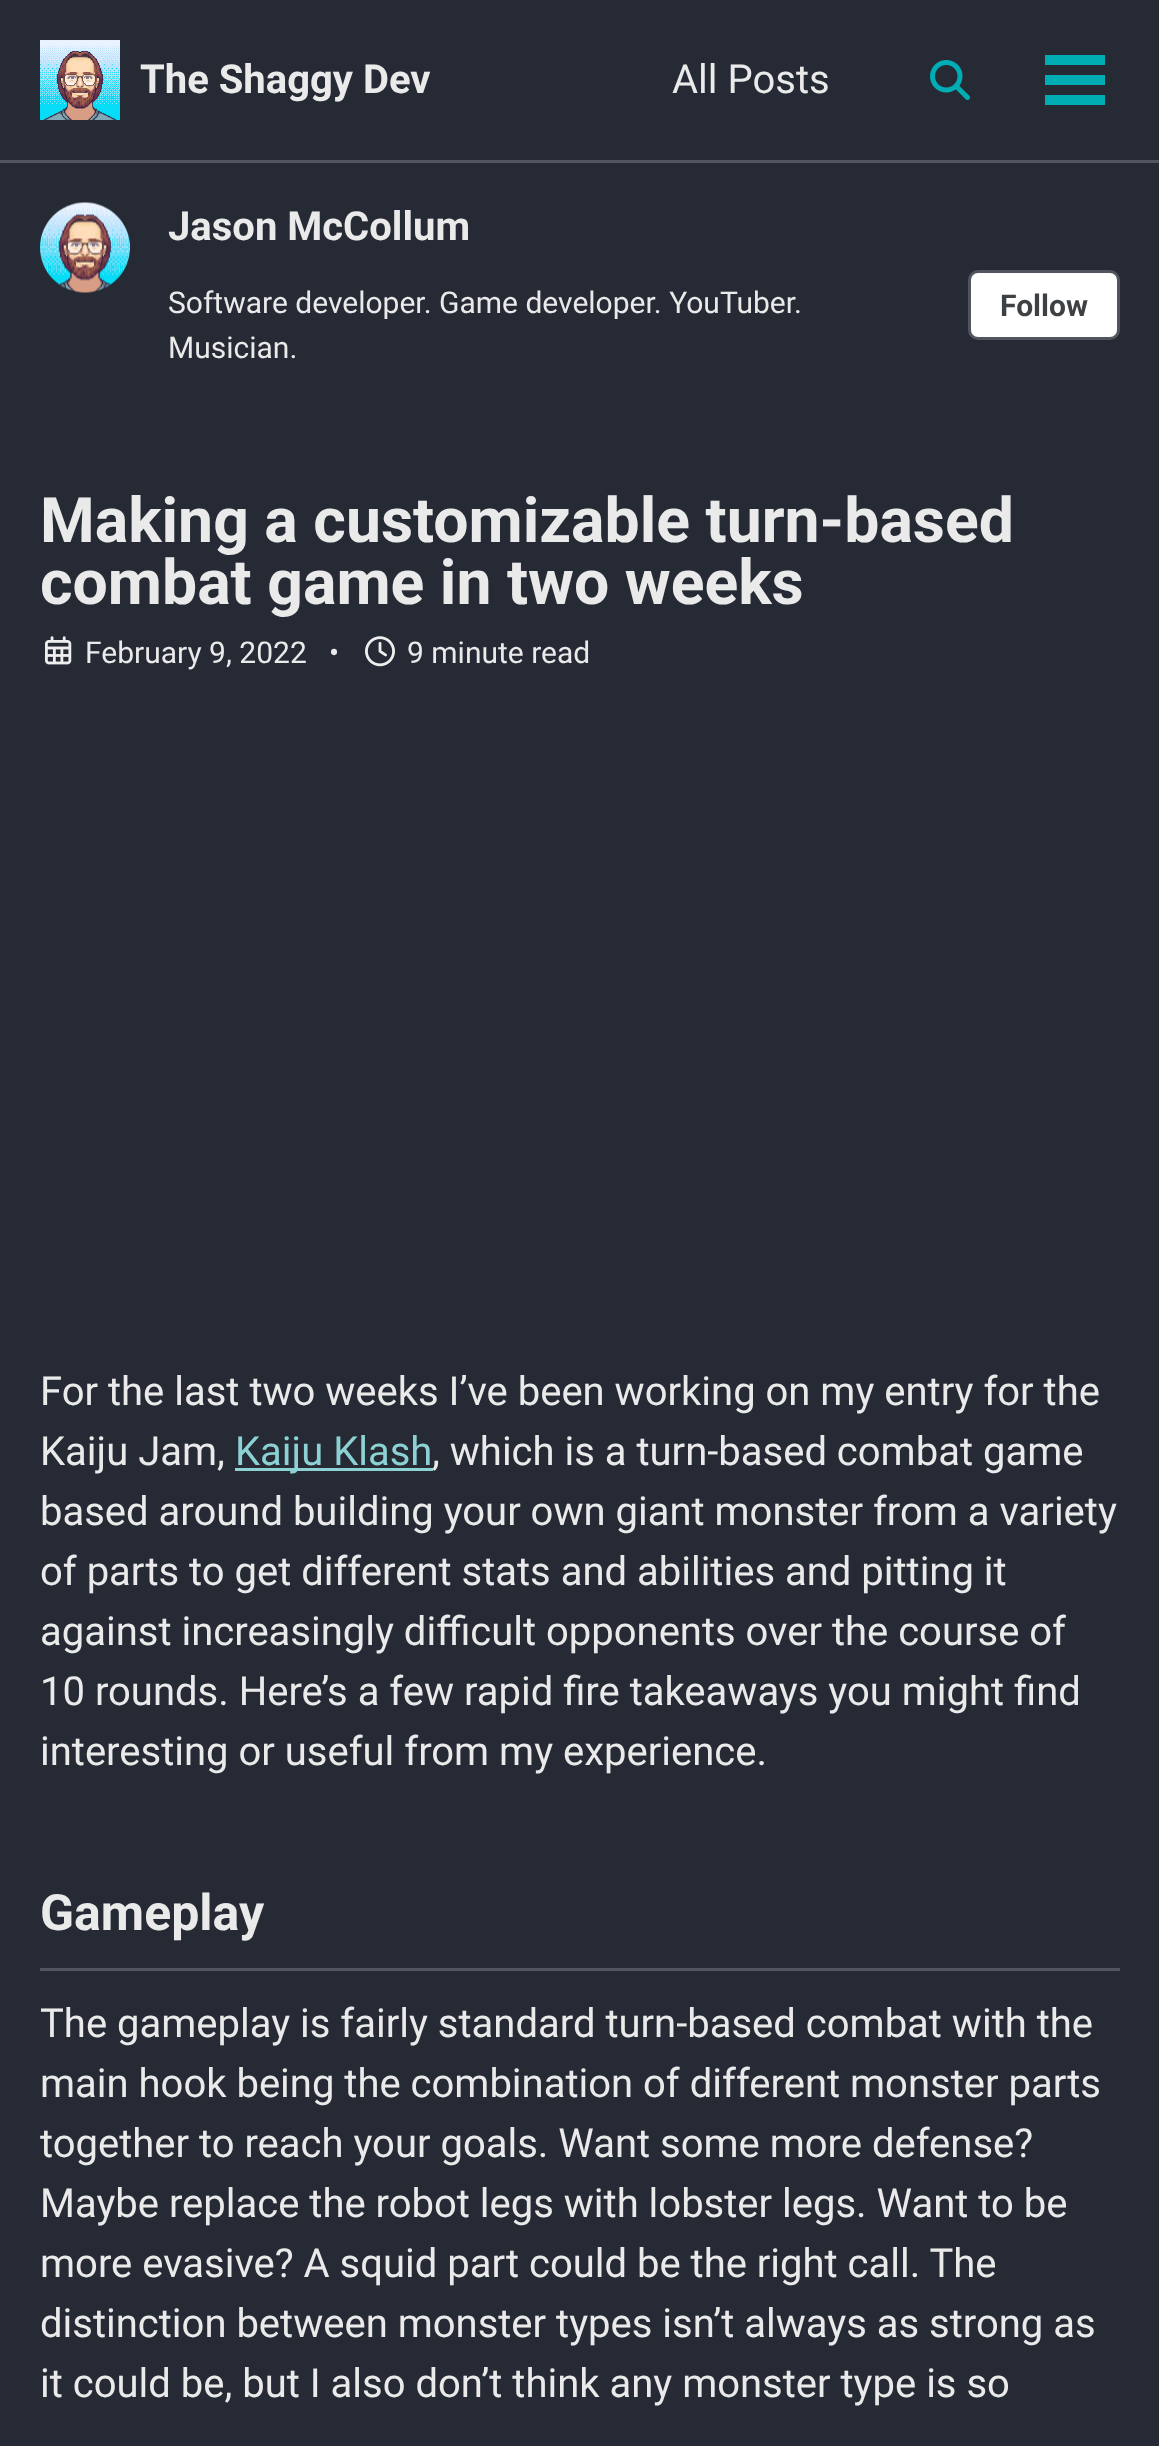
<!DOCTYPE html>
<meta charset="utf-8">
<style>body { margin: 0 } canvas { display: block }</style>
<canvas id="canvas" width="1159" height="2446"></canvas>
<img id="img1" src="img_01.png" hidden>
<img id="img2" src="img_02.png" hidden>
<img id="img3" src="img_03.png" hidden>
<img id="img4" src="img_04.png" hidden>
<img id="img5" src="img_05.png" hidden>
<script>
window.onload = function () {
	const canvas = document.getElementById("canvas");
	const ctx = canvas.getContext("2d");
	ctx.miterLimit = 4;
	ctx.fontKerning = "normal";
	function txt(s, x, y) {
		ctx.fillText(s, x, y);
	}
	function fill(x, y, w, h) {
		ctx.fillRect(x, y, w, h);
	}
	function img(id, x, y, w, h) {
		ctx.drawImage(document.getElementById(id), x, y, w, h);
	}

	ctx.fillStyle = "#252A34";
	fill(0, 0, 1159, 2446);
	ctx.fillStyle = "#51555D";
	fill(0, 160, 1159, 3);
	img("img1", 40, 40, 80, 80);
	img("img2", 930, 60, 40, 40);
	ctx.fillStyle = "#00ADB5";
	fill(1045, 75, 60, 10);
	fill(1045, 55, 60, 10);
	fill(1045, 95, 60, 10);
	img("img3", 40, 202, 90, 91);
	ctx.fillStyle = "#FFFFFF";
	ctx.beginPath();
	ctx.roundRect(969.5, 271.5, 149, 67, 8.5);
	ctx.fill();
	ctx.strokeStyle = "#51555D";
	ctx.lineWidth = 3;
	ctx.stroke();
	img("img4", 45, 636, 27, 29);
	img("img5", 365, 636, 30, 31);
	ctx.fillStyle = "#8CD2D5";
	fill(235, 1468, 198, 3);
	ctx.fillStyle = "#51555D";
	fill(40, 1968, 1080, 3);
	ctx.font = "bold 40px Roboto";
	ctx.fillStyle = "#EAEAEA";
	txt("The Shaggy Dev", 140, 93);
	ctx.font = "40px Roboto";
	txt("All Posts", 672, 93);
	ctx.font = "bold 40px Roboto";
	txt("Jason McCollum", 168, 240);
	ctx.font = "30px Roboto";
	txt("Software developer. Game developer. YouTuber.", 168, 313);
	txt("Musician.", 168, 358);
	ctx.font = "bold 30px Roboto";
	ctx.fillStyle = "#3D4144";
	txt("Follow", 1000, 316);
	ctx.font = "bold 62.5px Roboto";
	ctx.fillStyle = "#EAEAEA";
	txt("Making a customizable turn-based", 40, 542);
	txt("combat game in two weeks", 40, 604);
	ctx.font = "30px Roboto";
	txt("February 9, 2022", 85, 663);
	txt("•", 329, 663);
	txt("9 minute read", 407, 663);
	ctx.font = "40px Roboto";
	txt("For the last two weeks I’ve been working on my entry for the", 40, 1405);
	txt("Kaiju Jam,", 40, 1465);
	ctx.fillStyle = "#8CD2D5";
	txt("Kaiju Klash", 235, 1465);
	ctx.fillStyle = "#EAEAEA";
	txt(", which is a turn-based combat game", 432, 1465);
	txt("based around building your own giant monster from a variety", 40, 1525);
	txt("of parts to get different stats and abilities and pitting it", 40, 1585);
	txt("against increasingly difficult opponents over the course of", 40, 1645);
	txt("10 rounds. Here’s a few rapid fire takeaways you might find", 40, 1705);
	txt("interesting or useful from my experience.", 40, 1765);
	ctx.font = "bold 50px Roboto";
	txt("Gameplay", 40, 1930);
	ctx.font = "40px Roboto";
	txt("The gameplay is fairly standard turn-based combat with the", 40, 2037);
	txt("main hook being the combination of different monster parts", 40, 2097);
	txt("together to reach your goals. Want some more defense?", 40, 2157);
	txt("Maybe replace the robot legs with lobster legs. Want to be", 40, 2217);
	txt("more evasive? A squid part could be the right call. The", 40, 2277);
	txt("distinction between monster types isn’t always as strong as", 40, 2337);
	txt("it could be, but I also don’t think any monster type is so", 40, 2397);
};
</script>
